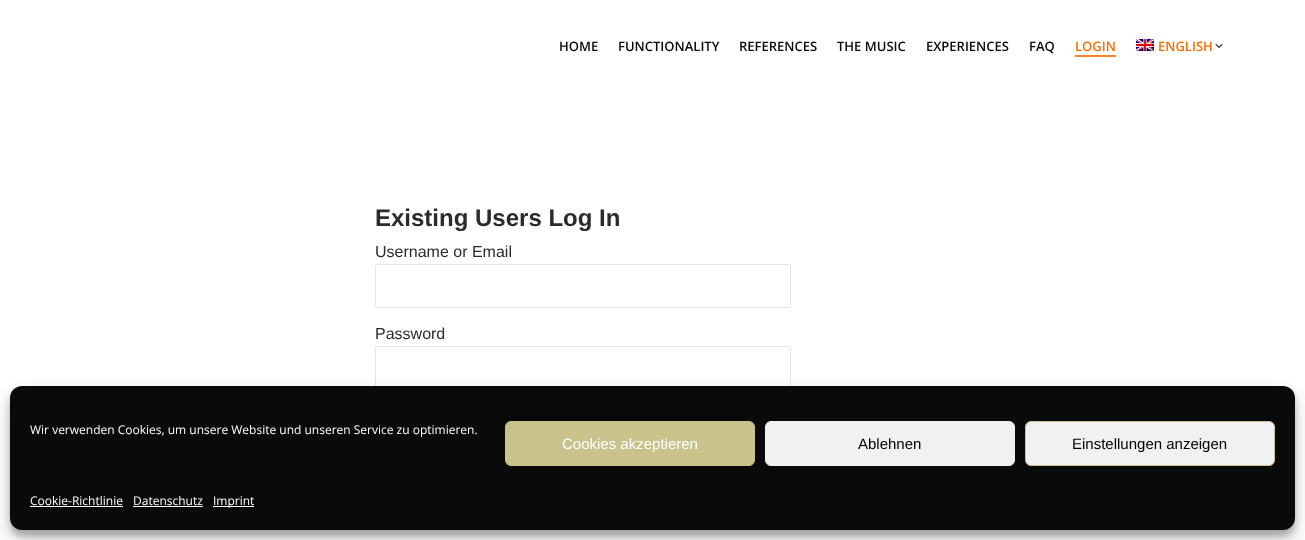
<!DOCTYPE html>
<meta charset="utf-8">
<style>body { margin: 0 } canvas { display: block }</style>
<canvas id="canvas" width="1305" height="540"></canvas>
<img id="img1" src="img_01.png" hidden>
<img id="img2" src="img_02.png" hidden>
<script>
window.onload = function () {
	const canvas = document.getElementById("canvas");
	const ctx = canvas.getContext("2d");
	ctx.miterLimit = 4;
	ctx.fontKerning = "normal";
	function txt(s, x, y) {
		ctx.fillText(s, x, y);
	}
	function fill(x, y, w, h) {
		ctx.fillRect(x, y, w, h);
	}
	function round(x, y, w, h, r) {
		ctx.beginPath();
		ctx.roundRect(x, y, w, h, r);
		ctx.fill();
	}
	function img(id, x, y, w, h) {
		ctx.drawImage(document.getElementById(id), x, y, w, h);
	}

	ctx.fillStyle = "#FFFFFF";
	fill(0, 0, 1305, 540);
	ctx.fillStyle = "#FC8326";
	fill(1075, 55, 41, 2);
	img("img1", 1136, 39, 18, 12);
	img("img2", 1215, 44, 8, 4);
	ctx.beginPath();
	ctx.roundRect(375.5, 264.5, 415, 43, 1.5);
	ctx.strokeStyle = "#E6E6E6";
	ctx.stroke();
	ctx.beginPath();
	ctx.roundRect(375.5, 346.5, 415, 43, 1.5);
	ctx.stroke();
	ctx.fillStyle = "rgba(0, 0, 0, 0.23)";
	ctx.filter = "blur(3px)";
	ctx.beginPath();
	ctx.roundRect(10, 392, 1285, 144, 12);
	ctx.fill();
	ctx.filter = "none";
	ctx.fillStyle = "rgba(0, 0, 0, 0.19)";
	ctx.filter = "blur(10px)";
	ctx.beginPath();
	ctx.roundRect(10, 396, 1285, 144, 12);
	ctx.fill();
	ctx.filter = "none";
	ctx.fillStyle = "#0A0A0A";
	round(10, 386, 1285, 144, 12);
	ctx.fillStyle = "#C9C28B";
	ctx.beginPath();
	ctx.roundRect(505.5, 421.5, 249, 44, 5.5);
	ctx.fill();
	ctx.strokeStyle = "#C9C28B";
	ctx.stroke();
	ctx.fillStyle = "#F1F1F1";
	ctx.beginPath();
	ctx.roundRect(765.5, 421.5, 249, 44, 5.5);
	ctx.fill();
	ctx.strokeStyle = "#F1F1F1";
	ctx.stroke();
	ctx.beginPath();
	ctx.roundRect(1025.5, 421.5, 249, 44, 5.5);
	ctx.fill();
	ctx.strokeStyle = "#C9C28B";
	ctx.stroke();
	ctx.fillStyle = "#FFFFFF";
	fill(30, 506, 93, 1);
	fill(133, 506, 70, 1);
	fill(213, 506, 41, 1);
	ctx.font = "600 13px Open Sans";
	ctx.fillStyle = "#0A0A0A";
	txt("HOME", 559, 51);
	txt("FUNCTIONALITY", 618, 51);
	txt("REFERENCES", 739, 51);
	txt("THE MUSIC", 837, 51);
	txt("EXPERIENCES", 926, 51);
	txt("FAQ", 1029, 51);
	ctx.fillStyle = "#FC6D00";
	txt("LOGIN", 1075, 51);
	txt("ENGLISH", 1158, 51);
	ctx.font = "bold 24px Liberation Sans";
	ctx.fillStyle = "#2B2B2B";
	txt("Existing Users Log In", 375, 226);
	ctx.font = "16px Liberation Sans";
	txt("Username or Email", 375, 257);
	txt("Password", 375, 339);
	ctx.font = "12px Open Sans";
	ctx.fillStyle = "#FFFFFF";
	txt("Wir verwenden Cookies, um unsere Website und unseren Service zu optimieren.", 30, 434);
	ctx.font = "15px Liberation Sans";
	txt("Cookies akzeptieren", 562, 449);
	ctx.fillStyle = "#000000";
	txt("Ablehnen", 858, 449);
	txt("Einstellungen anzeigen", 1072, 449);
	ctx.font = "12px Open Sans";
	ctx.fillStyle = "#FFFFFF";
	txt("Cookie-Richtlinie", 30, 505);
	txt("Datenschutz", 133, 505);
	txt("Imprint", 213, 505);
};
</script>
